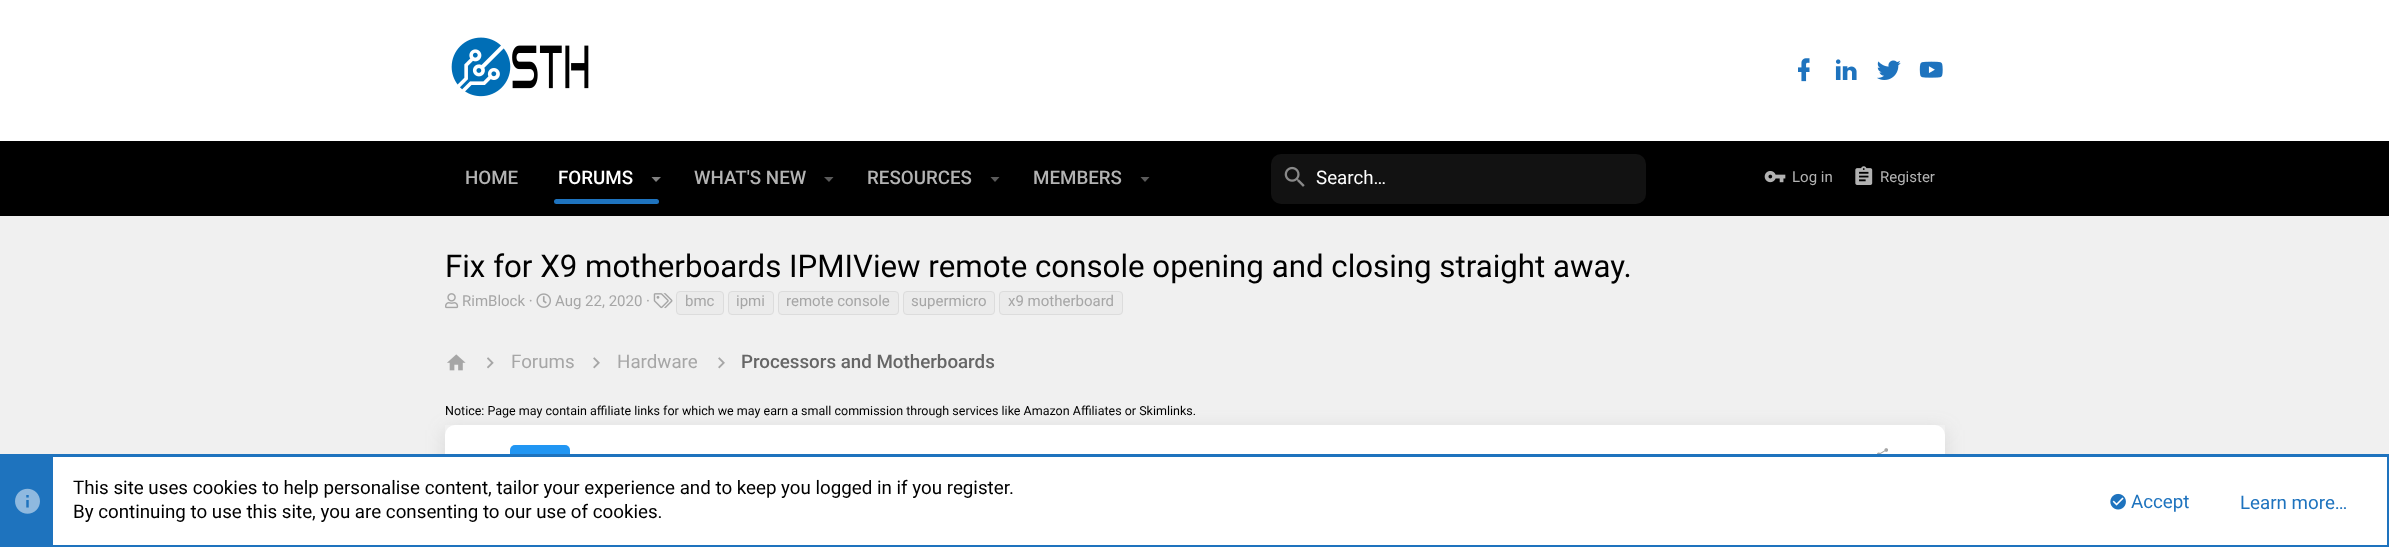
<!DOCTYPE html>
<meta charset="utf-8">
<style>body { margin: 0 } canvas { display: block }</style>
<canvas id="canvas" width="2389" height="547"></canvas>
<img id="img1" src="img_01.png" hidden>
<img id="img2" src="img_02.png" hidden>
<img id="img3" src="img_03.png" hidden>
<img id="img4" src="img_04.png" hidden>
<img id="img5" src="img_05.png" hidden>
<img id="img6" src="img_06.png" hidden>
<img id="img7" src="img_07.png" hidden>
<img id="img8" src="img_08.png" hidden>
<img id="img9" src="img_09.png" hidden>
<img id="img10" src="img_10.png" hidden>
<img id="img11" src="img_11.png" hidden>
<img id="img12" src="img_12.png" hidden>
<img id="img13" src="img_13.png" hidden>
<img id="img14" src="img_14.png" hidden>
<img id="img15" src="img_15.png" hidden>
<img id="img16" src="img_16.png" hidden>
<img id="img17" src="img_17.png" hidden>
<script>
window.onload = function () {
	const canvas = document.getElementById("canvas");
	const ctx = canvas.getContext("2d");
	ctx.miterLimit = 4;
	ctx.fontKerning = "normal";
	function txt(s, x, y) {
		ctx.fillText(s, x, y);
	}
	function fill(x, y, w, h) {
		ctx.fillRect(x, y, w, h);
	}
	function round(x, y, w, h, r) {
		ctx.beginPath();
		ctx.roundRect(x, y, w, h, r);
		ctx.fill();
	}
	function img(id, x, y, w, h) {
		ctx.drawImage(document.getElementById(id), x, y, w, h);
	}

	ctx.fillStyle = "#F0F0F0";
	fill(0, 0, 2389, 547);
	ctx.fillStyle = "#FFFFFF";
	fill(0, 0, 2389, 141);
	img("img1", 451, 37, 138, 60);
	img("img2", 1798, 58, 12, 24);
	img("img3", 1835, 59, 22, 21);
	img("img4", 1877, 60, 24, 20);
	img("img5", 1919, 61, 24, 17);
	ctx.fillStyle = "#000000";
	fill(0, 141, 2389, 75);
	ctx.fillStyle = "#808080";
	ctx.beginPath();
	ctx.moveTo(651.5, 177);
	ctx.lineTo(656, 182);
	ctx.lineTo(661, 177);
	ctx.closePath();
	ctx.fill();
	ctx.fillStyle = "#1E73BE";
	round(554, 199, 105, 5, 2.5);
	ctx.fillStyle = "#5A5A5A";
	ctx.beginPath();
	ctx.moveTo(824, 177);
	ctx.lineTo(829, 182);
	ctx.lineTo(833.5, 177);
	ctx.closePath();
	ctx.fill();
	ctx.beginPath();
	ctx.moveTo(990.5, 177);
	ctx.lineTo(995, 182);
	ctx.lineTo(999.5, 177);
	ctx.closePath();
	ctx.fill();
	ctx.beginPath();
	ctx.moveTo(1140.5, 177);
	ctx.lineTo(1145, 182);
	ctx.lineTo(1149.5, 177);
	ctx.closePath();
	ctx.fill();
	ctx.fillStyle = "#121212";
	round(1271, 154, 375, 50, 10);
	img("img6", 1284, 166, 21, 21);
	img("img7", 1764, 171, 22, 12);
	img("img8", 1855, 166, 18, 19);
	img("img9", 445, 293, 14, 16);
	img("img10", 536, 293, 15, 15);
	img("img11", 653, 293, 20, 16);
	ctx.fillStyle = "#EBEBEB";
	ctx.beginPath();
	ctx.roundRect(676.5, 291.5, 47, 23, 3.5);
	ctx.fill();
	ctx.strokeStyle = "#DCDCDC";
	ctx.stroke();
	ctx.beginPath();
	ctx.roundRect(728.5, 291.5, 45, 23, 3.5);
	ctx.fill();
	ctx.stroke();
	ctx.beginPath();
	ctx.roundRect(778.5, 291.5, 120, 23, 3.5);
	ctx.fill();
	ctx.stroke();
	ctx.beginPath();
	ctx.roundRect(903.5, 291.5, 91, 23, 3.5);
	ctx.fill();
	ctx.stroke();
	ctx.beginPath();
	ctx.roundRect(999.5, 291.5, 123, 23, 3.5);
	ctx.fill();
	ctx.stroke();
	img("img12", 447, 354, 19, 17);
	img("img13", 487, 357, 7, 12);
	img("img14", 593, 357, 7, 12);
	img("img14", 718, 357, 7, 12);
	ctx.save();
	ctx.beginPath();
	ctx.moveTo(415, 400);
	ctx.lineTo(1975, 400);
	ctx.lineTo(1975, 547);
	ctx.lineTo(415, 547);
	ctx.closePath();
	ctx.moveTo(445, 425);
	ctx.lineTo(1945, 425);
	ctx.lineTo(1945, 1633);
	ctx.lineTo(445, 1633);
	ctx.closePath();
	ctx.clip("evenodd");
	ctx.fillStyle = "rgba(113, 113, 113, 0.2)";
	ctx.filter = "blur(9.5px)";
	ctx.beginPath();
	ctx.rect(445, 430, 1500, 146);
	ctx.fill();
	ctx.filter = "none";
	ctx.restore();
	ctx.fillStyle = "#FFFFFF";
	round(445, 425, 1500, 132, 10);
	ctx.fillStyle = "#2196F3";
	round(510, 445, 60, 60, 5);
	img("img15", 1877, 448, 11, 6);
	ctx.fillStyle = "#FFFFFF";
	fill(53, 457, 2334, 88);
	ctx.strokeStyle = "#1E73BE";
	ctx.lineWidth = 3;
	ctx.strokeRect(1.5, 455.5, 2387, 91);
	ctx.fillStyle = "#1E73BE";
	fill(3, 457, 50, 88);
	img("img16", 15, 488, 25, 26);
	img("img17", 2110, 493, 16, 17);
	ctx.font = "500 18.75px Roboto";
	ctx.fillStyle = "#B3B3B3";
	txt("HOME", 465, 184);
	ctx.fillStyle = "#FFFFFF";
	txt("FORUMS", 558, 184);
	ctx.fillStyle = "#B3B3B3";
	txt("WHAT'S NEW", 694, 184);
	txt("RESOURCES", 867, 184);
	txt("MEMBERS", 1033, 184);
	ctx.font = "18.75px Roboto";
	ctx.fillStyle = "#FFFFFF";
	txt("Search…", 1316, 184);
	ctx.font = "15px Roboto";
	ctx.fillStyle = "#B3B3B3";
	txt("Log in", 1792, 182);
	txt("Register", 1880, 182);
	ctx.font = "31.25px Roboto";
	ctx.fillStyle = "#000000";
	txt("Fix for X9 motherboards IPMIView remote console opening and closing straight away.", 445, 277);
	ctx.font = "15px Roboto";
	ctx.fillStyle = "#A6A6A6";
	txt("RimBlock ·", 462, 306);
	txt("Aug 22, 2020 ·", 555, 306);
	txt("bmc", 685, 306);
	txt("ipmi", 736, 306);
	txt("remote console", 786, 306);
	txt("supermicro", 911, 306);
	txt("x9 motherboard", 1008, 306);
	ctx.font = "18.75px Roboto";
	txt("Forums", 511, 368);
	txt("Hardware", 617, 368);
	ctx.font = "500 18.75px Roboto";
	ctx.fillStyle = "#666666";
	txt("Processors and Motherboards", 741, 368);
	ctx.font = "12.5px Roboto";
	ctx.fillStyle = "#000000";
	txt("Notice: Page may contain affiliate links for which we may earn a small commission through services like Amazon Affiliates or Skimlinks.", 445, 415);
	ctx.font = "18.75px Roboto";
	txt("This site uses cookies to help personalise content, tailor your experience and to keep you logged in if you register.", 73, 494);
	txt("By continuing to use this site, you are consenting to our use of cookies.", 73, 518);
	ctx.fillStyle = "#1E73BE";
	txt("Accept", 2131, 508);
	txt("Learn more…", 2240, 509);
};
</script>
